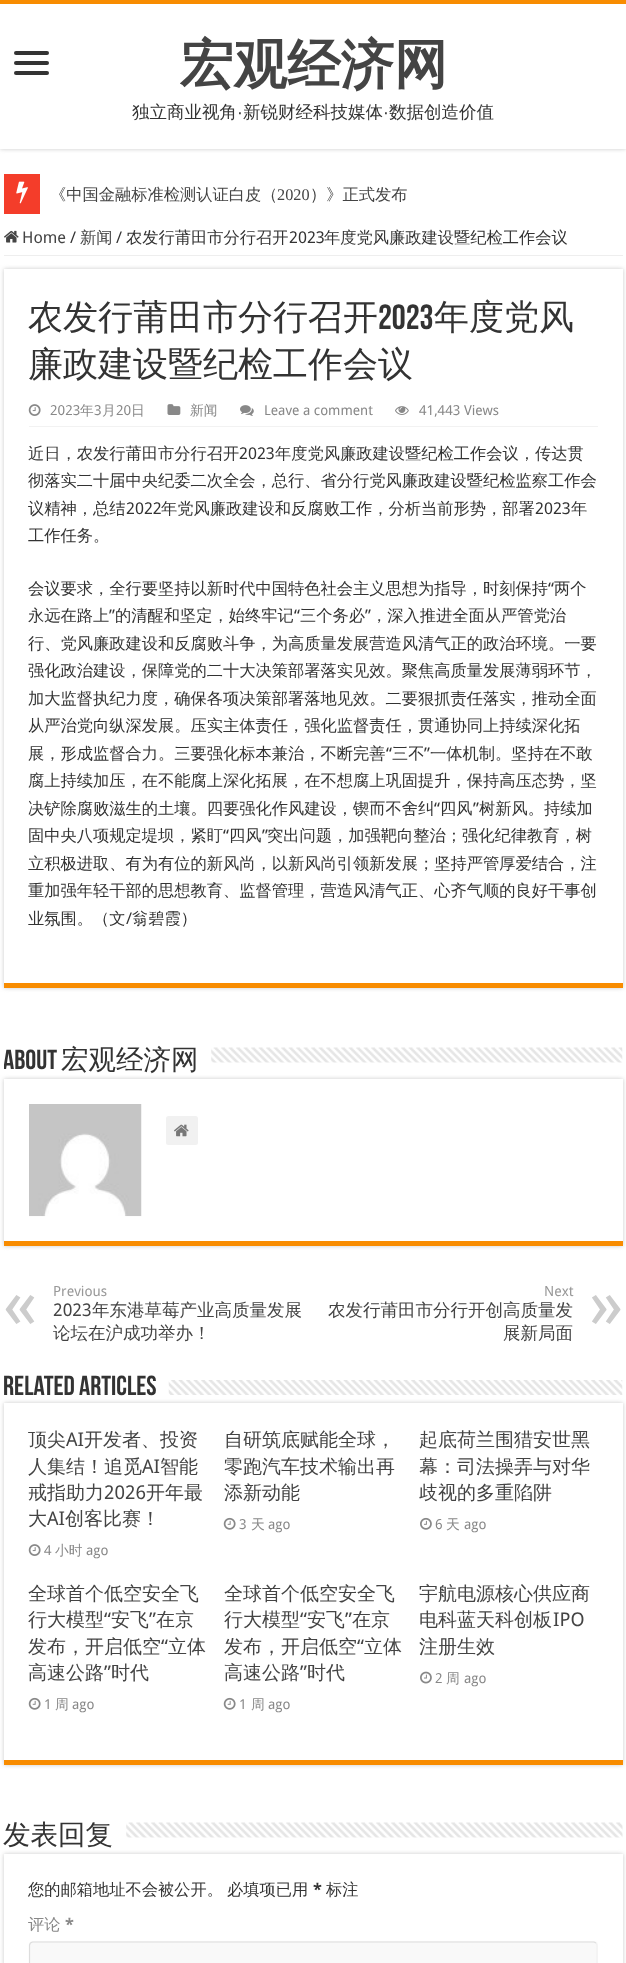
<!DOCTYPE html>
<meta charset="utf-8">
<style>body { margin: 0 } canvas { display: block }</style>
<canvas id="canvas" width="626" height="1963"></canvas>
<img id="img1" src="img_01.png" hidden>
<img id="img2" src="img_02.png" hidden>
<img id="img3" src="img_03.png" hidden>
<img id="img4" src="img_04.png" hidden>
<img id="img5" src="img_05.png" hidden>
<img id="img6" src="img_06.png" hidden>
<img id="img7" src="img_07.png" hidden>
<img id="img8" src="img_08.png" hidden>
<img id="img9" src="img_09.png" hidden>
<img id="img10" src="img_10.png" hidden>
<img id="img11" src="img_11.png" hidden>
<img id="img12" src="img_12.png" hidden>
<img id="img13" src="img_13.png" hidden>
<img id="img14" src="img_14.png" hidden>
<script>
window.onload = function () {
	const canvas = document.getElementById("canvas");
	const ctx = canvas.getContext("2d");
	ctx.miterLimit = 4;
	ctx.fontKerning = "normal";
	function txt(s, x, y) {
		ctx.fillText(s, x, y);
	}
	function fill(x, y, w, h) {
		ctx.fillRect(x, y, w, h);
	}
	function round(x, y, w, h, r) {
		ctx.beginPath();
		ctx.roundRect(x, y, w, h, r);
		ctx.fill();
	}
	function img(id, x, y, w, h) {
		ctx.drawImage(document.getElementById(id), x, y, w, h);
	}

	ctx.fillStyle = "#FFFFFF";
	fill(0, 0, 626, 1963);
	ctx.fillStyle = "#CACACA";
	ctx.filter = "blur(2px)";
	ctx.beginPath();
	ctx.rect(0, 0, 626, 149);
	ctx.fill();
	ctx.filter = "none";
	ctx.fillStyle = "#FFFFFF";
	fill(0, 4, 626, 145);
	ctx.fillStyle = "#F88C00";
	fill(0, 0, 626, 4);
	ctx.fillStyle = "#333333";
	round(14, 51, 35, 4, 2);
	round(14, 61, 35, 4, 2);
	round(14, 71, 35, 4, 2);
	ctx.fillStyle = "#CACACA";
	ctx.filter = "blur(0.5px)";
	ctx.beginPath();
	ctx.rect(4, 174, 619, 40);
	ctx.fill();
	ctx.filter = "none";
	ctx.fillStyle = "#FFFFFF";
	fill(40, 174, 583, 40);
	ctx.fillStyle = "#F43D2A";
	fill(4, 174, 36, 40);
	img("img1", 16, 181, 12, 23);
	ctx.fillStyle = "#EEEEEE";
	fill(4, 255, 619, 1);
	img("img2", 4, 230, 15, 13);
	ctx.fillStyle = "#CACACA";
	ctx.filter = "blur(2px)";
	ctx.beginPath();
	ctx.rect(4, 269, 619, 719);
	ctx.fill();
	ctx.filter = "none";
	ctx.fillStyle = "#FFFFFF";
	fill(4, 269, 619, 714);
	ctx.fillStyle = "#F88C00";
	fill(4, 983, 619, 5);
	ctx.fillStyle = "#F2F2F2";
	fill(29, 426, 569, 1);
	img("img3", 28, 404, 13, 12);
	img("img4", 167, 404, 14, 11);
	img("img5", 240, 405, 14, 11);
	img("img6", 395, 406, 14, 9);
	img("img7", 211, 1047, 412, 16);
	ctx.fillStyle = "#CACACA";
	ctx.filter = "blur(2px)";
	ctx.beginPath();
	ctx.rect(4, 1079, 619, 167);
	ctx.fill();
	ctx.filter = "none";
	ctx.fillStyle = "#FFFFFF";
	fill(4, 1079, 619, 162);
	ctx.fillStyle = "#F88C00";
	fill(4, 1241, 619, 5);
	img("img8", 29, 1104, 113, 113);
	ctx.fillStyle = "#F1F1F1";
	round(166, 1116, 32, 29, 2.5);
	img("img9", 174, 1124, 15, 13);
	img("img10", 168, 1380, 455, 15);
	ctx.fillStyle = "#CACACA";
	ctx.filter = "blur(2px)";
	ctx.beginPath();
	ctx.rect(4, 1403, 619, 362);
	ctx.fill();
	ctx.filter = "none";
	ctx.fillStyle = "#FFFFFF";
	fill(4, 1403, 619, 357);
	ctx.fillStyle = "#F88C00";
	fill(4, 1760, 619, 5);
	img("img3", 28, 1544, 13, 12);
	img("img11", 223, 1517, 13, 13);
	img("img12", 420, 1517, 12, 13);
	img("img11", 28, 1697, 13, 13);
	img("img11", 223, 1697, 13, 13);
	img("img13", 420, 1671, 12, 13);
	img("img14", 126, 1822, 497, 16);
	ctx.fillStyle = "#CACACA";
	ctx.filter = "blur(2px)";
	ctx.beginPath();
	ctx.rect(4, 1854, 619, 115);
	ctx.fill();
	ctx.filter = "none";
	ctx.fillStyle = "#FFFFFF";
	fill(4, 1854, 619, 109);
	ctx.fillStyle = "#F9F9F9";
	round(29, 1941, 569, 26, 4);
	ctx.beginPath();
	ctx.moveTo(596, 1943);
	ctx.lineTo(597, 1945);
	ctx.lineTo(597, 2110);
	ctx.lineTo(596, 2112);
	ctx.lineTo(594, 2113);
	ctx.lineTo(32.5, 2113);
	ctx.lineTo(30.5, 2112);
	ctx.strokeStyle = "#F1F1F1";
	ctx.lineWidth = 1.2;
	ctx.stroke();
	ctx.beginPath();
	ctx.moveTo(30.5, 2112);
	ctx.lineTo(29.5, 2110);
	ctx.lineTo(29.5, 1945);
	ctx.lineTo(30.5, 1943);
	ctx.lineTo(32.5, 1942);
	ctx.lineTo(594, 1942);
	ctx.lineTo(596, 1943);
	ctx.strokeStyle = "#DDDDDD";
	ctx.stroke();
	ctx.font = "bold 53.5px WenQuanYi Zen Hei";
	ctx.fillStyle = "#444444";
	txt("宏观经济网", 180, 83);
	ctx.font = "500 17.5px WenQuanYi Zen Hei";
	ctx.fillStyle = "#333333";
	txt("独立商业视角", 132, 118);
	ctx.font = "17.5px Liberation Sans";
	txt("·", 237, 118);
	ctx.font = "500 17.5px WenQuanYi Zen Hei";
	txt("新锐财经科技媒体", 243, 118);
	ctx.font = "17.5px Liberation Sans";
	txt("·", 383, 118);
	ctx.font = "500 17.5px WenQuanYi Zen Hei";
	txt("数据创造价值", 389, 118);
	ctx.font = "500 16.25px WenQuanYi Zen Hei";
	ctx.fillStyle = "#444444";
	txt("《中国金融标准检测认证白皮（", 50, 200);
	ctx.font = "16.25px Liberation Serif";
	txt("2020", 277, 200);
	ctx.font = "500 16.25px WenQuanYi Zen Hei";
	txt("）》正式发布", 310, 200);
	ctx.font = "16.25px Droid Sans";
	txt("Home", 22, 243);
	ctx.fillStyle = "#333333";
	txt("/", 70, 243);
	ctx.font = "500 16.25px WenQuanYi Zen Hei";
	ctx.fillStyle = "#444444";
	txt("新闻", 80, 243);
	ctx.font = "16.25px Droid Sans";
	ctx.fillStyle = "#333333";
	txt("/", 116, 243);
	ctx.font = "500 16.25px WenQuanYi Zen Hei";
	txt("农发行莆田市分行召开", 126, 243);
	ctx.font = "16.25px Droid Sans";
	txt("2023", 289, 243);
	ctx.font = "500 16.25px WenQuanYi Zen Hei";
	txt("年度党风廉政建设暨纪检工作会议", 324, 243);
	ctx.font = "500 35px WenQuanYi Zen Hei";
	txt("农发行莆田市分行召开", 28, 329);
	ctx.font = "bold 35px Bebas Neue";
	txt("2023", 378, 329);
	ctx.font = "500 35px WenQuanYi Zen Hei";
	txt("年度党风", 434, 329);
	txt("廉政建设暨纪检工作会议", 28, 376);
	ctx.font = "13.75px Droid Sans";
	ctx.fillStyle = "#888888";
	txt("2023", 50, 415);
	ctx.font = "500 13.75px WenQuanYi Zen Hei";
	txt("年", 80, 415);
	ctx.font = "13.75px Droid Sans";
	txt("3", 94, 415);
	ctx.font = "500 13.75px WenQuanYi Zen Hei";
	txt("月", 102, 415);
	ctx.font = "13.75px Droid Sans";
	txt("20", 116, 415);
	ctx.font = "500 13.75px WenQuanYi Zen Hei";
	txt("日", 131, 415);
	txt("新闻", 190, 415);
	ctx.font = "13.75px Droid Sans";
	txt("Leave a comment", 264, 415);
	txt("41,443 Views", 419, 415);
	ctx.font = "500 16.25px WenQuanYi Zen Hei";
	ctx.fillStyle = "#333333";
	txt("近日，农发行莆田市分行召开", 28, 459);
	ctx.font = "16.25px Droid Sans";
	txt("2023", 239, 459);
	ctx.font = "500 16.25px WenQuanYi Zen Hei";
	txt("年度党风廉政建设暨纪检工作会议，传达贯", 275, 459);
	txt("彻落实二十届中央纪委二次全会，总行、省分行党风廉政建设暨纪检监察工作会", 28, 486);
	txt("议精神，总结", 28, 514);
	ctx.font = "16.25px Droid Sans";
	txt("2022", 126, 514);
	ctx.font = "500 16.25px WenQuanYi Zen Hei";
	txt("年党风廉政建设和反腐败工作，分析当前形势，部署", 161, 514);
	ctx.font = "16.25px Droid Sans";
	txt("2023", 535, 514);
	ctx.font = "500 16.25px WenQuanYi Zen Hei";
	txt("年", 571, 514);
	txt("工作任务。", 28, 541);
	txt("会议要求，全行要坚持以新时代中国特色社会主义思想为指导，时刻保持", 28, 594);
	ctx.font = "16.25px Droid Sans";
	txt("“", 548, 594);
	ctx.font = "500 16.25px WenQuanYi Zen Hei";
	txt("两个", 554, 594);
	txt("永远在路上", 28, 621);
	ctx.font = "16.25px Droid Sans";
	txt("”", 109, 621);
	ctx.font = "500 16.25px WenQuanYi Zen Hei";
	txt("的清醒和坚定，始终牢记", 115, 621);
	ctx.font = "16.25px Droid Sans";
	txt("“", 294, 621);
	ctx.font = "500 16.25px WenQuanYi Zen Hei";
	txt("三个务必", 300, 621);
	ctx.font = "16.25px Droid Sans";
	txt("”", 365, 621);
	ctx.font = "500 16.25px WenQuanYi Zen Hei";
	txt("，深入推进全面从严管党治", 371, 621);
	txt("行、党风廉政建设和反腐败斗争，为高质量发展营造风清气正的政治环境。一要", 28, 649);
	txt("强化政治建设，保障党的二十大决策部署落实见效。聚焦高质量发展薄弱环节，", 28, 676);
	txt("加大监督执纪力度，确保各项决策部署落地见效。二要狠抓责任落实，推动全面", 28, 704);
	txt("从严治党向纵深发展。压实主体责任，强化监督责任，贯通协同上持续深化拓", 28, 731);
	txt("展，形成监督合力。三要强化标本兼治，不断完善", 28, 759);
	ctx.font = "16.25px Droid Sans";
	txt("“", 386, 759);
	ctx.font = "500 16.25px WenQuanYi Zen Hei";
	txt("三不", 392, 759);
	ctx.font = "16.25px Droid Sans";
	txt("”", 424, 759);
	ctx.font = "500 16.25px WenQuanYi Zen Hei";
	txt("一体机制。坚持在不敢", 430, 759);
	txt("腐上持续加压，在不能腐上深化拓展，在不想腐上巩固提升，保持高压态势，坚", 28, 786);
	txt("决铲除腐败滋生的土壤。四要强化作风建设，锲而不舍纠", 28, 814);
	ctx.font = "16.25px Droid Sans";
	txt("“", 434, 814);
	ctx.font = "500 16.25px WenQuanYi Zen Hei";
	txt("四风", 440, 814);
	ctx.font = "16.25px Droid Sans";
	txt("”", 473, 814);
	ctx.font = "500 16.25px WenQuanYi Zen Hei";
	txt("树新风。持续加", 479, 814);
	txt("固中央八项规定堤坝，紧盯", 28, 841);
	ctx.font = "16.25px Droid Sans";
	txt("“", 223, 841);
	ctx.font = "500 16.25px WenQuanYi Zen Hei";
	txt("四风", 229, 841);
	ctx.font = "16.25px Droid Sans";
	txt("”", 262, 841);
	ctx.font = "500 16.25px WenQuanYi Zen Hei";
	txt("突出问题，加强靶向整治；强化纪律教育，树", 267, 841);
	txt("立积极进取、有为有位的新风尚，以新风尚引领新发展；坚持严管厚爱结合，注", 28, 869);
	txt("重加强年轻干部的思想教育、监督管理，营造风清气正、心齐气顺的良好干事创", 28, 896);
	txt("业氛围。（文", 28, 924);
	ctx.font = "16.25px Droid Sans";
	txt("/", 126, 924);
	ctx.font = "500 16.25px WenQuanYi Zen Hei";
	txt("翁碧霞）", 132, 924);
	ctx.save();
	ctx.beginPath();
	ctx.rect(4, 1038, 619, 41);
	ctx.clip();
	ctx.font = "bold 27.5px Bebas Neue";
	txt("About", 3, 1069);
	ctx.restore();
	ctx.font = "500 27.5px WenQuanYi Zen Hei";
	txt("宏观经济网", 61, 1069);
	ctx.font = "14px Droid Sans";
	ctx.fillStyle = "#999999";
	txt("Previous", 53, 1296);
	ctx.font = "70px Droid Sans";
	ctx.fillStyle = "#CCCCCC";
	txt("«", 3, 1328);
	ctx.font = "17.5px Droid Sans";
	ctx.fillStyle = "#444444";
	txt("2023", 53, 1316);
	ctx.font = "500 17.5px WenQuanYi Zen Hei";
	txt("年东港草莓产业高质量发展", 92, 1316);
	txt("论坛在沪成功举办！", 53, 1339);
	ctx.font = "14px Droid Sans";
	ctx.fillStyle = "#999999";
	txt("Next", 544, 1296);
	ctx.font = "500 17.5px WenQuanYi Zen Hei";
	ctx.fillStyle = "#444444";
	txt("农发行莆田市分行开创高质量发", 328, 1316);
	ctx.font = "70px Droid Sans";
	ctx.fillStyle = "#CCCCCC";
	txt("»", 589, 1328);
	ctx.font = "500 17.5px WenQuanYi Zen Hei";
	ctx.fillStyle = "#444444";
	txt("展新局面", 503, 1339);
	ctx.font = "bold 27.5px Bebas Neue";
	ctx.fillStyle = "#333333";
	txt("Related Articles", 3, 1395);
	ctx.font = "500 19px WenQuanYi Zen Hei";
	ctx.fillStyle = "#444444";
	txt("顶尖", 28, 1446);
	ctx.font = "19px Droid Sans";
	txt("AI", 66, 1446);
	ctx.font = "500 19px WenQuanYi Zen Hei";
	txt("开发者、投资", 84, 1446);
	txt("人集结！追觅", 28, 1473);
	ctx.font = "19px Droid Sans";
	txt("AI", 142, 1473);
	ctx.font = "500 19px WenQuanYi Zen Hei";
	txt("智能", 160, 1473);
	txt("戒指助力", 28, 1499);
	ctx.font = "19px Droid Sans";
	txt("2026", 104, 1499);
	ctx.font = "500 19px WenQuanYi Zen Hei";
	txt("开年最", 146, 1499);
	txt("大", 28, 1525);
	ctx.font = "19px Droid Sans";
	txt("AI", 47, 1525);
	ctx.font = "500 19px WenQuanYi Zen Hei";
	txt("创客比赛！", 65, 1525);
	ctx.font = "13.75px Droid Sans";
	ctx.fillStyle = "#888888";
	txt("4", 44, 1555);
	ctx.font = "500 13.75px WenQuanYi Zen Hei";
	txt("小时", 55, 1555);
	ctx.font = "13.75px Droid Sans";
	txt("ago", 86, 1555);
	ctx.font = "500 19px WenQuanYi Zen Hei";
	ctx.fillStyle = "#444444";
	txt("自研筑底赋能全球，", 224, 1446);
	txt("零跑汽车技术输出再", 224, 1473);
	txt("添新动能", 224, 1499);
	ctx.font = "13.75px Droid Sans";
	ctx.fillStyle = "#888888";
	txt("3", 239, 1529);
	ctx.font = "500 13.75px WenQuanYi Zen Hei";
	txt("天", 251, 1529);
	ctx.font = "13.75px Droid Sans";
	txt("ago", 268, 1529);
	ctx.font = "500 19px WenQuanYi Zen Hei";
	ctx.fillStyle = "#444444";
	txt("起底荷兰围猎安世黑", 419, 1446);
	txt("幕：司法操弄与对华", 419, 1473);
	txt("歧视的多重陷阱", 419, 1499);
	ctx.font = "13.75px Droid Sans";
	ctx.fillStyle = "#888888";
	txt("6", 435, 1529);
	ctx.font = "500 13.75px WenQuanYi Zen Hei";
	txt("天", 446, 1529);
	ctx.font = "13.75px Droid Sans";
	txt("ago", 464, 1529);
	ctx.font = "500 19px WenQuanYi Zen Hei";
	ctx.fillStyle = "#444444";
	txt("全球首个低空安全飞", 28, 1600);
	txt("行大模型", 28, 1626);
	ctx.font = "19px Droid Sans";
	txt("“", 104, 1626);
	ctx.font = "500 19px WenQuanYi Zen Hei";
	txt("安飞", 111, 1626);
	ctx.font = "19px Droid Sans";
	txt("”", 149, 1626);
	ctx.font = "500 19px WenQuanYi Zen Hei";
	txt("在京", 156, 1626);
	txt("发布，开启低空", 28, 1653);
	ctx.font = "19px Droid Sans";
	txt("“", 161, 1653);
	ctx.font = "500 19px WenQuanYi Zen Hei";
	txt("立体", 168, 1653);
	txt("高速公路", 28, 1679);
	ctx.font = "19px Droid Sans";
	txt("”", 104, 1679);
	ctx.font = "500 19px WenQuanYi Zen Hei";
	txt("时代", 111, 1679);
	ctx.font = "13.75px Droid Sans";
	ctx.fillStyle = "#888888";
	txt("1", 44, 1709);
	ctx.font = "500 13.75px WenQuanYi Zen Hei";
	txt("周", 55, 1709);
	ctx.font = "13.75px Droid Sans";
	txt("ago", 72, 1709);
	ctx.font = "500 19px WenQuanYi Zen Hei";
	ctx.fillStyle = "#444444";
	txt("全球首个低空安全飞", 224, 1600);
	txt("行大模型", 224, 1626);
	ctx.font = "19px Droid Sans";
	txt("“", 300, 1626);
	ctx.font = "500 19px WenQuanYi Zen Hei";
	txt("安飞", 307, 1626);
	ctx.font = "19px Droid Sans";
	txt("”", 345, 1626);
	ctx.font = "500 19px WenQuanYi Zen Hei";
	txt("在京", 352, 1626);
	txt("发布，开启低空", 224, 1653);
	ctx.font = "19px Droid Sans";
	txt("“", 357, 1653);
	ctx.font = "500 19px WenQuanYi Zen Hei";
	txt("立体", 364, 1653);
	txt("高速公路", 224, 1679);
	ctx.font = "19px Droid Sans";
	txt("”", 300, 1679);
	ctx.font = "500 19px WenQuanYi Zen Hei";
	txt("时代", 307, 1679);
	ctx.font = "13.75px Droid Sans";
	ctx.fillStyle = "#888888";
	txt("1", 239, 1709);
	ctx.font = "500 13.75px WenQuanYi Zen Hei";
	txt("周", 251, 1709);
	ctx.font = "13.75px Droid Sans";
	txt("ago", 268, 1709);
	ctx.font = "500 19px WenQuanYi Zen Hei";
	ctx.fillStyle = "#444444";
	txt("宇航电源核心供应商", 419, 1600);
	txt("电科蓝天科创板", 419, 1626);
	ctx.font = "19px Droid Sans";
	txt("IPO", 553, 1626);
	ctx.font = "500 19px WenQuanYi Zen Hei";
	txt("注册生效", 419, 1653);
	ctx.font = "13.75px Droid Sans";
	ctx.fillStyle = "#888888";
	txt("2", 435, 1683);
	ctx.font = "500 13.75px WenQuanYi Zen Hei";
	txt("周", 446, 1683);
	ctx.font = "13.75px Droid Sans";
	txt("ago", 464, 1683);
	ctx.font = "500 27.5px WenQuanYi Zen Hei";
	ctx.fillStyle = "#333333";
	txt("发表回复", 3, 1844);
	ctx.font = "500 16.25px WenQuanYi Zen Hei";
	txt("您的邮箱地址不会被公开。", 28, 1895);
	txt("必填项已用", 227, 1895);
	ctx.font = "bold 16.25px Droid Sans";
	txt("*", 313, 1895);
	ctx.font = "500 16.25px WenQuanYi Zen Hei";
	txt("标注", 326, 1895);
	ctx.fillStyle = "#888888";
	txt("评论", 28, 1930);
	ctx.font = "bold 16.25px Droid Sans";
	txt("*", 65, 1930);
};
</script>
